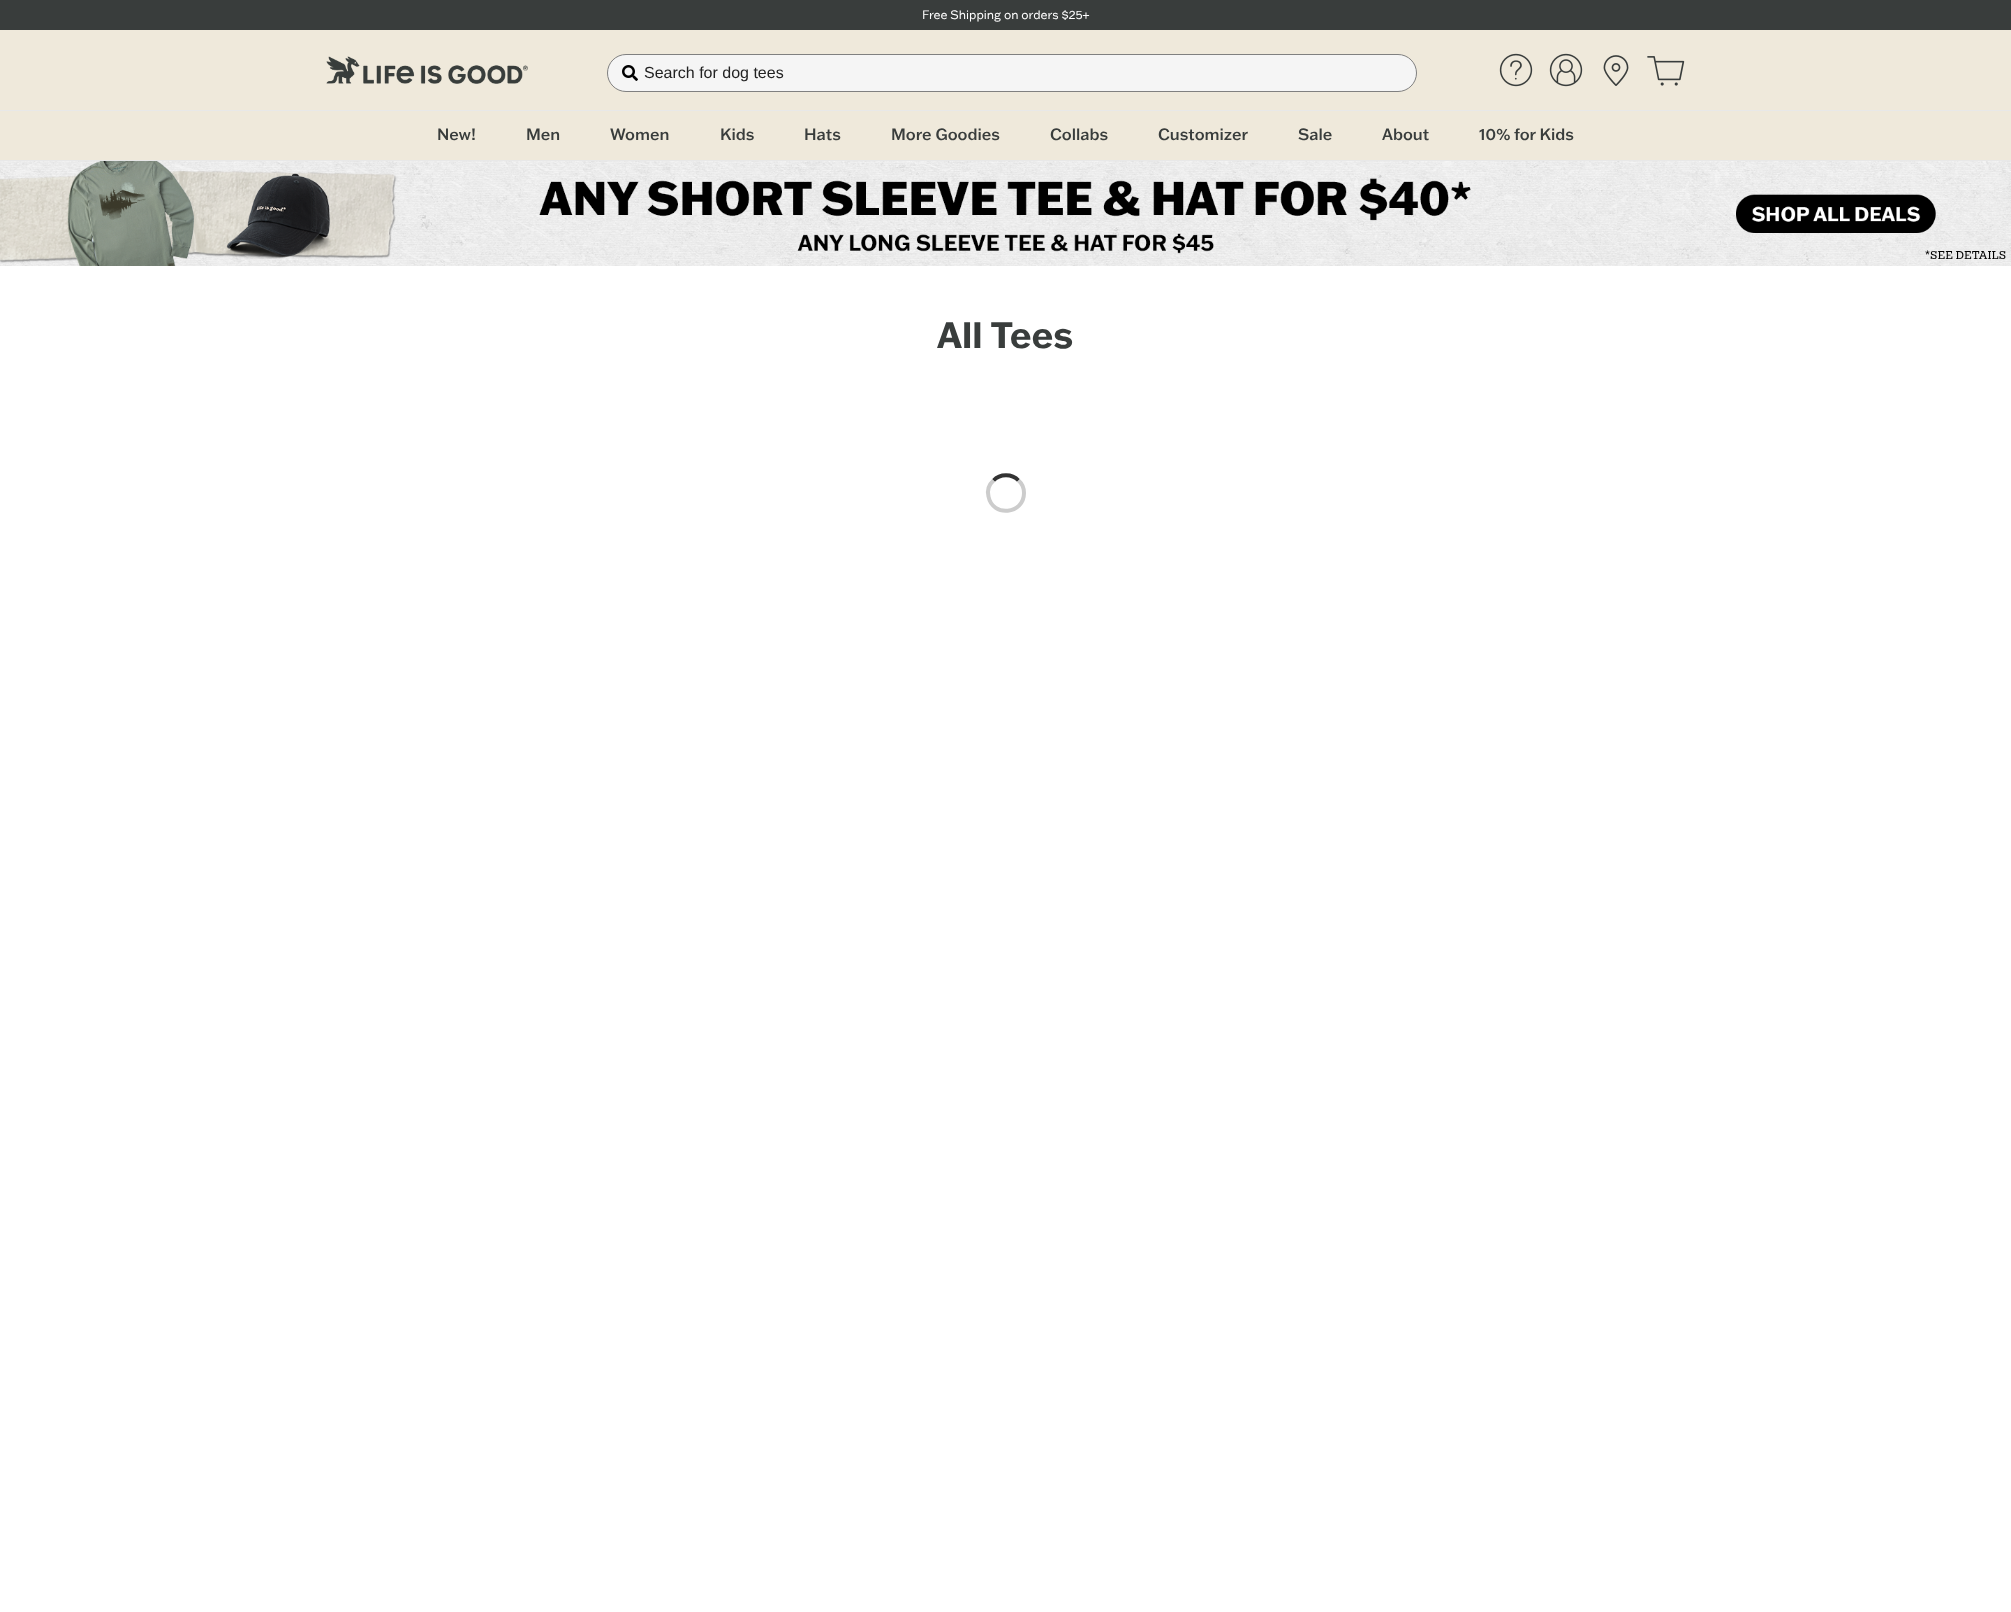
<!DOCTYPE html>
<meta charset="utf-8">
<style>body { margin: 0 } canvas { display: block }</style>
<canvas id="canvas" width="2011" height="1612"></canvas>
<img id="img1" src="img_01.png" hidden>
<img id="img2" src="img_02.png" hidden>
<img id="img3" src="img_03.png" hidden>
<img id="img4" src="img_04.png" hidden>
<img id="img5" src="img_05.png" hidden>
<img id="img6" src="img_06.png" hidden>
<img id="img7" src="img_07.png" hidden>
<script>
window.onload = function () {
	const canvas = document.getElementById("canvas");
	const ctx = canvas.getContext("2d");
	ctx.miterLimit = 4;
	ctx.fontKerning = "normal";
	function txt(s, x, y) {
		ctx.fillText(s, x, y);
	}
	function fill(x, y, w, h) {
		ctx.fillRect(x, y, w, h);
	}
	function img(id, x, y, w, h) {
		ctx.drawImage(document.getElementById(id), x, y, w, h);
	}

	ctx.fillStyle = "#FFFFFF";
	fill(0, 0, 2011, 1612);
	ctx.fillStyle = "#393D3C";
	fill(0, 0, 2011, 30);
	ctx.fillStyle = "#EFE9DB";
	fill(0, 30, 2011, 130);
	img("img1", 326, 56, 202, 28);
	ctx.fillStyle = "#F5F5F5";
	ctx.beginPath();
	ctx.roundRect(607.5, 54.5, 809, 37, 18.5);
	ctx.fill();
	ctx.strokeStyle = "#808080";
	ctx.stroke();
	img("img2", 622, 65, 16, 16);
	img("img3", 1499, 53, 34, 34);
	img("img4", 1549, 53, 34, 34);
	img("img5", 1603, 55, 26, 31);
	img("img6", 1647, 56, 38, 30);
	ctx.fillStyle = "#E8E8E8";
	fill(0, 110, 2011, 1);
	fill(0, 160, 2011, 1);
	img("img7", 0, 161, 2011, 105);
	ctx.beginPath();
	ctx.moveTo(993.5, 480.5);
	ctx.bezierCurveTo(1000, 473.5, 1012, 473.5, 1018.5, 480.5);
	ctx.strokeStyle = "#333333";
	ctx.lineWidth = 4;
	ctx.stroke();
	ctx.beginPath();
	ctx.moveTo(1018.5, 480.5);
	ctx.bezierCurveTo(1022, 483.5, 1024, 488.5, 1024, 493);
	ctx.bezierCurveTo(1024, 514.5, 992.5, 517.5, 988.5, 496.5);
	ctx.bezierCurveTo(987, 490.5, 989, 484.5, 993.5, 480.5);
	ctx.strokeStyle = "#CCCCCC";
	ctx.stroke();
	ctx.font = "12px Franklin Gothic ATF";
	ctx.fillStyle = "#FFFFFF";
	txt("Free Shipping on orders $25+", 922, 19);
	ctx.font = "16px Liberation Sans";
	ctx.fillStyle = "#222222";
	txt("Search for dog tees", 644, 78);
	ctx.font = "500 16px Franklin Gothic ATF";
	ctx.fillStyle = "#393D3C";
	txt("New!", 437, 140);
	txt("Men", 526, 140);
	txt("Women", 610, 140);
	txt("Kids", 720, 140);
	txt("Hats", 804, 140);
	txt("More Goodies", 891, 140);
	txt("Collabs", 1050, 140);
	txt("Customizer", 1158, 140);
	txt("Sale", 1298, 140);
	txt("About", 1382, 140);
	txt("10% for Kids", 1479, 140);
	ctx.font = "12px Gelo";
	ctx.fillStyle = "#000000";
	txt("*SEE DETAILS", 1925, 259);
	ctx.font = "bold 36px Franklin Gothic ATF";
	ctx.fillStyle = "#393D3C";
	txt("All Tees", 937, 348);
};
</script>
